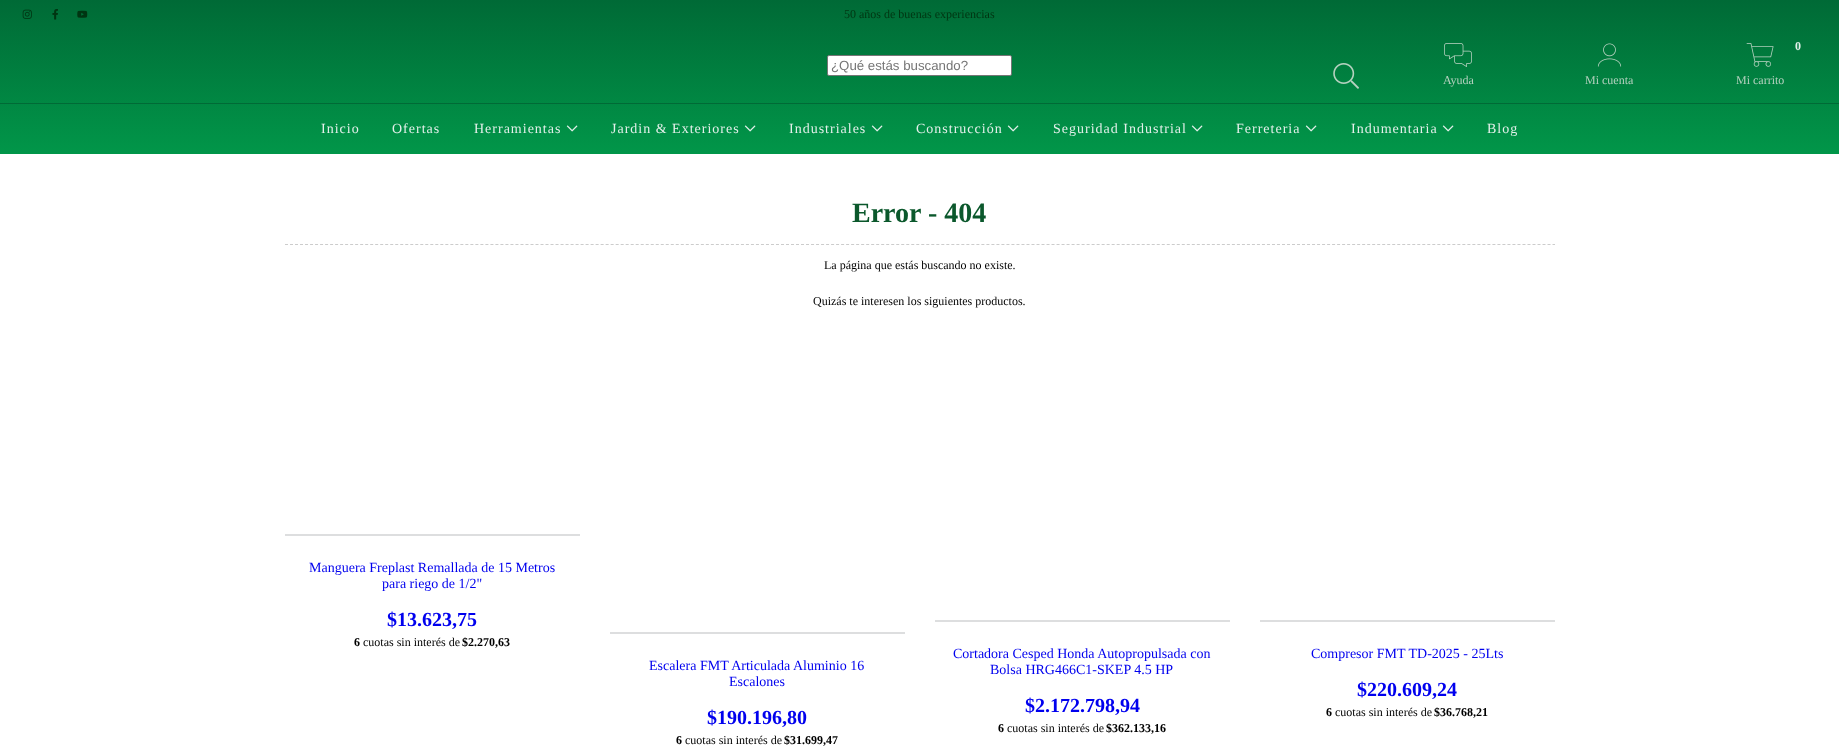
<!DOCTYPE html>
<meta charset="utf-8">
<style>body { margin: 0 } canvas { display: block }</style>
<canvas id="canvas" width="1839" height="746"></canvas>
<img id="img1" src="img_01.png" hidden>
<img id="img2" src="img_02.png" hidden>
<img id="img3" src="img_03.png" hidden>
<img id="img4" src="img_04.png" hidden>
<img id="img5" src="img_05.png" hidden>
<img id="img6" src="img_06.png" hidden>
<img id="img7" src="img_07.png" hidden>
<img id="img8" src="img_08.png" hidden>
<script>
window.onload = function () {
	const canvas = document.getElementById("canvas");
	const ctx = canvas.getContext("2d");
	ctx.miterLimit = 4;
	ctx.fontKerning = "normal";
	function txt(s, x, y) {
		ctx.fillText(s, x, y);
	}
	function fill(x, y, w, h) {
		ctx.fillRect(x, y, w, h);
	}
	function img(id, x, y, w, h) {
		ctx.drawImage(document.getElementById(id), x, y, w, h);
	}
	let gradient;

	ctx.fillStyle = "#FFFFFF";
	fill(0, 0, 1839, 746);
	gradient = ctx.createLinearGradient(920, 0, 920, 154);
	gradient.addColorStop(0, "#006A36");
	gradient.addColorStop(1, "#019649");
	ctx.fillStyle = gradient;
	fill(0, 0, 1839, 154);
	img("img1", 22, 9, 10, 10);
	img("img2", 52, 9, 6, 11);
	img("img3", 77, 10, 11, 8);
	ctx.fillStyle = "#FFFFFF";
	ctx.beginPath();
	ctx.roundRect(827.5, 55.5, 184, 20, 1.5);
	ctx.fill();
	ctx.strokeStyle = "#767676";
	ctx.stroke();
	img("img4", 1333, 63, 26, 26);
	img("img5", 1444, 43, 28, 24);
	img("img6", 1597, 43, 25, 24);
	img("img7", 1746, 43, 28, 24);
	ctx.fillStyle = "#006A36";
	fill(0, 103, 1839, 1);
	img("img8", 566, 125, 12, 7);
	img("img8", 744, 125, 12, 7);
	img("img8", 871, 125, 12, 7);
	img("img8", 1007, 125, 12, 7);
	img("img8", 1191, 125, 12, 7);
	img("img8", 1305, 125, 12, 7);
	img("img8", 1442, 125, 12, 7);
	ctx.beginPath();
	ctx.moveTo(285, 244.5);
	ctx.lineTo(1555, 244.5);
	ctx.strokeStyle = "#CCCCCC";
	ctx.setLineDash([3, 2.01]);
	ctx.stroke();
	ctx.fillStyle = "#DDDEDF";
	fill(285, 534, 295, 2);
	fill(610, 632, 295, 2);
	fill(935, 620, 295, 2);
	fill(1260, 620, 295, 2);
	ctx.font = "12px Liberation Serif";
	ctx.fillStyle = "#003512";
	txt("50 años de buenas experiencias", 844, 18);
	ctx.font = "13.25px Liberation Sans";
	ctx.fillStyle = "#757575";
	txt("¿Qué estás buscando?", 831, 70);
	ctx.font = "12px Liberation Serif";
	ctx.fillStyle = "#B5D1BF";
	txt("Ayuda", 1443, 84);
	txt("Mi cuenta", 1585, 84);
	ctx.font = "bold 12px Liberation Serif";
	ctx.fillStyle = "#E3F0EA";
	txt("0", 1795, 50);
	ctx.font = "12px Liberation Serif";
	ctx.fillStyle = "#B5D1BF";
	txt("Mi carrito", 1736, 84);
	ctx.letterSpacing = "1px";
	ctx.font = "14px Liberation Serif";
	ctx.fillStyle = "#E3F0EA";
	txt("Inicio", 321, 133);
	txt("Ofertas", 392, 133);
	txt("Herramientas", 474, 133);
	txt("Jardin & Exteriores", 611, 133);
	txt("Industriales", 789, 133);
	txt("Construcción", 916, 133);
	txt("Seguridad Industrial", 1053, 133);
	txt("Ferreteria", 1236, 133);
	txt("Indumentaria", 1351, 133);
	txt("Blog", 1487, 133);
	ctx.letterSpacing = "0px";
	ctx.font = "bold 28px Liberation Serif";
	ctx.fillStyle = "#0B582C";
	txt("Error - 404", 852, 222);
	ctx.font = "12px Liberation Serif";
	ctx.fillStyle = "#000000";
	txt("La página que estás buscando no existe.", 824, 269);
	txt("Quizás te interesen los siguientes productos.", 813, 305);
	ctx.font = "14px Liberation Serif";
	ctx.fillStyle = "#0000EE";
	txt("Manguera Freplast Remallada de 15 Metros", 309, 572);
	txt("para riego de 1/2\"", 382, 588);
	ctx.font = "bold 20px Liberation Serif";
	txt("$13.623,75", 387, 626);
	ctx.font = "bold 12px Liberation Serif";
	ctx.fillStyle = "#000000";
	txt("6", 354, 646);
	ctx.font = "12px Liberation Serif";
	txt("cuotas sin interés de", 363, 646);
	ctx.font = "bold 12px Liberation Serif";
	txt("$2.270,63", 462, 646);
	ctx.font = "14px Liberation Serif";
	ctx.fillStyle = "#0000EE";
	txt("Escalera FMT Articulada Aluminio 16", 649, 670);
	txt("Escalones", 729, 686);
	ctx.font = "bold 20px Liberation Serif";
	txt("$190.196,80", 707, 724);
	ctx.font = "bold 12px Liberation Serif";
	ctx.fillStyle = "#000000";
	txt("6", 676, 744);
	ctx.font = "12px Liberation Serif";
	txt("cuotas sin interés de", 685, 744);
	ctx.font = "bold 12px Liberation Serif";
	txt("$31.699,47", 784, 744);
	ctx.font = "14px Liberation Serif";
	ctx.fillStyle = "#0000EE";
	txt("Cortadora Cesped Honda Autopropulsada con", 953, 658);
	txt("Bolsa HRG466C1-SKEP 4.5 HP", 990, 674);
	ctx.font = "bold 20px Liberation Serif";
	txt("$2.172.798,94", 1025, 712);
	ctx.font = "bold 12px Liberation Serif";
	ctx.fillStyle = "#000000";
	txt("6", 998, 732);
	ctx.font = "12px Liberation Serif";
	txt("cuotas sin interés de", 1007, 732);
	ctx.font = "bold 12px Liberation Serif";
	txt("$362.133,16", 1106, 732);
	ctx.font = "14px Liberation Serif";
	ctx.fillStyle = "#0000EE";
	txt("Compresor FMT TD-2025 - 25Lts", 1311, 658);
	ctx.font = "bold 20px Liberation Serif";
	txt("$220.609,24", 1357, 696);
	ctx.font = "bold 12px Liberation Serif";
	ctx.fillStyle = "#000000";
	txt("6", 1326, 716);
	ctx.font = "12px Liberation Serif";
	txt("cuotas sin interés de", 1335, 716);
	ctx.font = "bold 12px Liberation Serif";
	txt("$36.768,21", 1434, 716);
};
</script>
